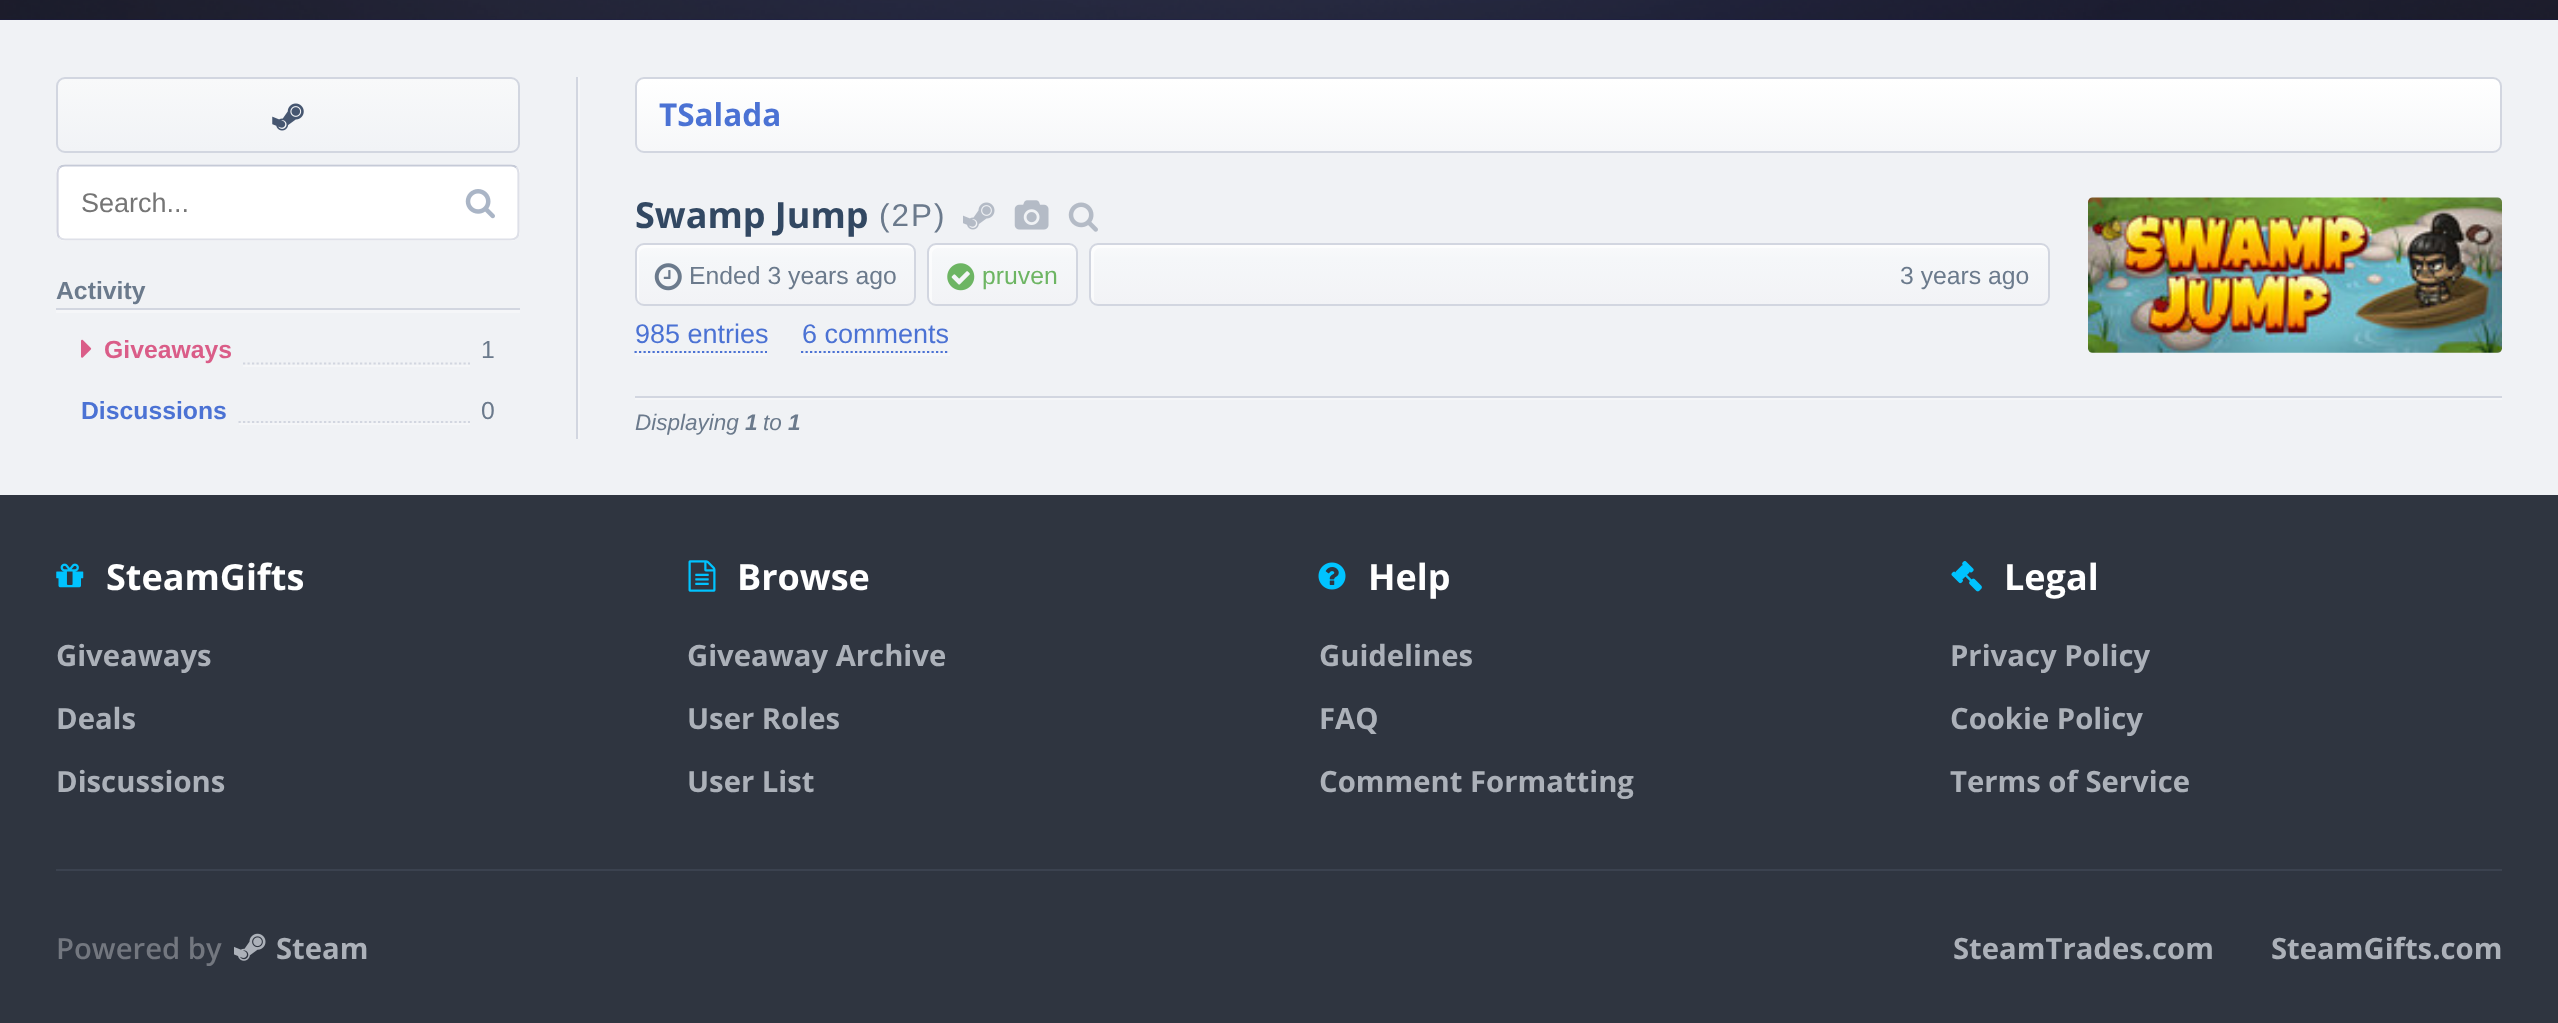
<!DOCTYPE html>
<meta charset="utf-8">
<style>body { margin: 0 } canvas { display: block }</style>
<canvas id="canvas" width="2558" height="1023"></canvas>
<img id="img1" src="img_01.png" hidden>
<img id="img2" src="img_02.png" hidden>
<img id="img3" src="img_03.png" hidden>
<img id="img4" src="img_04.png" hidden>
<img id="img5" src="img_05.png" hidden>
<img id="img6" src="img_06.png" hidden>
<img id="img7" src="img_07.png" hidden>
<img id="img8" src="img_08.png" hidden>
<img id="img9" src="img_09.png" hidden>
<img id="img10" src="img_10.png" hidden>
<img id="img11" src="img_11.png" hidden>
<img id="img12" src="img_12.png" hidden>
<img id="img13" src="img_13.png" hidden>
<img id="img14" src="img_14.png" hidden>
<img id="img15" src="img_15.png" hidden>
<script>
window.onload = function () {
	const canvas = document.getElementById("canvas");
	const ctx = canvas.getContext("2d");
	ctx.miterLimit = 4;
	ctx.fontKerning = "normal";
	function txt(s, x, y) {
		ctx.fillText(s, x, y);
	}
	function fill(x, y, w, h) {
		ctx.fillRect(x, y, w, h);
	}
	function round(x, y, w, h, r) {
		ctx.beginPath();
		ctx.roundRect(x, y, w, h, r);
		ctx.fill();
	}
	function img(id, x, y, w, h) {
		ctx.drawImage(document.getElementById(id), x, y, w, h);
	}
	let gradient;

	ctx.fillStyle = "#2F3540";
	fill(0, 0, 2558, 1023);
	ctx.fillStyle = "#181859";
	fill(0, 0, 2558, 20);
	img("img1", 0, 0, 2558, 20);
	ctx.fillStyle = "#F0F2F5";
	fill(0, 20, 2558, 475);
	ctx.save();
	ctx.beginPath();
	ctx.roundRect(56, 77, 464, 76, 9);
	ctx.clip();
	gradient = ctx.createLinearGradient(288, 79, 288, 151);
	gradient.addColorStop(0, "#F8F9FA");
	gradient.addColorStop(1, "#F1F3F6");
	ctx.fillStyle = gradient;
	fill(56, 79, 464, 72);
	ctx.restore();
	ctx.beginPath();
	ctx.roundRect(57, 78, 462, 74, 8);
	ctx.strokeStyle = "#D2D6E0";
	ctx.lineWidth = 2;
	ctx.stroke();
	img("img2", 272, 103, 32, 28);
	ctx.fillStyle = "#FFFFFF";
	round(56, 164, 464, 77, 9);
	ctx.beginPath();
	ctx.moveTo(59.5, 167.5);
	ctx.bezierCurveTo(61, 166, 63, 165.5, 65, 165.5);
	ctx.lineTo(511, 165.5);
	ctx.bezierCurveTo(513, 165.5, 515, 166, 516.5, 167.5);
	ctx.strokeStyle = "#C5CAD7";
	ctx.lineWidth = 2.2;
	ctx.stroke();
	ctx.beginPath();
	ctx.moveTo(516.5, 167.5);
	ctx.bezierCurveTo(518, 169, 518.5, 171, 518.5, 173);
	ctx.lineTo(518.5, 232);
	ctx.bezierCurveTo(518.5, 234, 518, 236, 516.5, 237.5);
	ctx.bezierCurveTo(515, 239, 513, 239.5, 511, 239.5);
	ctx.lineTo(65, 239.5);
	ctx.bezierCurveTo(63, 239.5, 61, 239, 59.5, 237.5);
	ctx.strokeStyle = "#DEE0E8";
	ctx.stroke();
	ctx.beginPath();
	ctx.moveTo(59.5, 237.5);
	ctx.bezierCurveTo(58, 236, 57.5, 234, 57.5, 232);
	ctx.lineTo(57.5, 173);
	ctx.bezierCurveTo(57.5, 171, 58, 169, 59.5, 167.5);
	ctx.strokeStyle = "#D2D4E0";
	ctx.stroke();
	img("img3", 465, 189, 30, 30);
	ctx.fillStyle = "#F5F6F8";
	ctx.beginPath();
	ctx.moveTo(56, 243);
	ctx.lineTo(56, 313);
	ctx.lineTo(520, 313);
	ctx.lineTo(520, 243);
	ctx.lineTo(520, 310);
	ctx.lineTo(56, 310);
	ctx.closePath();
	ctx.fill();
	ctx.fillStyle = "#D2D6E0";
	fill(56, 308, 464, 2);
	img("img4", 81, 339, 11, 19);
	ctx.fillStyle = "#F5F6F8";
	fill(243, 365, 227, 2);
	ctx.beginPath();
	ctx.moveTo(243, 363.5);
	ctx.lineTo(470, 363.5);
	ctx.strokeStyle = "#D2D6E0";
	ctx.setLineDash([2.25, 2.25]);
	ctx.stroke();
	fill(239, 423, 231, 2);
	ctx.beginPath();
	ctx.moveTo(238.5, 422);
	ctx.lineTo(470, 422);
	ctx.stroke();
	fill(578, 77, 2, 362);
	ctx.fillStyle = "#D2D6E0";
	fill(576, 77, 2, 362);
	ctx.save();
	ctx.beginPath();
	ctx.roundRect(635, 77, 1867, 76, 9);
	ctx.clip();
	gradient = ctx.createLinearGradient(1568, 79, 1568, 151);
	gradient.addColorStop(0, "#FFFFFF");
	gradient.addColorStop(1, "#F6F7F9");
	ctx.fillStyle = gradient;
	fill(635, 79, 1867, 72);
	ctx.restore();
	ctx.beginPath();
	ctx.roundRect(636, 78, 1865, 74, 8);
	ctx.lineWidth = 2;
	ctx.setLineDash([]);
	ctx.stroke();
	img("img5", 963, 202, 32, 28);
	img("img6", 1014, 200, 35, 30);
	img("img7", 1068, 202, 30, 30);
	ctx.save();
	ctx.beginPath();
	ctx.roundRect(635, 243, 281, 63, 9);
	ctx.clip();
	gradient = ctx.createLinearGradient(775, 245, 775, 304);
	gradient.addColorStop(0, "#F9FAFB");
	gradient.addColorStop(0.23, "#F5F7F9");
	gradient.addColorStop(1, "#F2F3F6");
	ctx.fillStyle = gradient;
	fill(635, 245, 281, 59);
	ctx.restore();
	ctx.fillStyle = "rgba(255, 255, 255, 0.6)";
	ctx.beginPath();
	ctx.moveTo(646, 248);
	ctx.lineTo(909, 248);
	ctx.bezierCurveTo(911, 248, 912, 249, 914, 249);
	ctx.bezierCurveTo(913, 247, 910, 245, 907, 245);
	ctx.lineTo(644, 245);
	ctx.bezierCurveTo(640, 245, 637, 248, 637, 252);
	ctx.lineTo(637, 297);
	ctx.bezierCurveTo(637, 299, 638, 302, 640, 303);
	ctx.bezierCurveTo(639, 302, 639, 300, 639, 299);
	ctx.lineTo(639, 254);
	ctx.bezierCurveTo(639, 251, 642, 248, 646, 248);
	ctx.closePath();
	ctx.fill();
	ctx.beginPath();
	ctx.roundRect(636, 244, 279, 61, 8);
	ctx.stroke();
	img("img8", 654, 263, 28, 28);
	ctx.save();
	ctx.beginPath();
	ctx.roundRect(927, 243, 151, 63, 9);
	ctx.clip();
	gradient = ctx.createLinearGradient(1002, 245, 1002, 304);
	gradient.addColorStop(0, "#F9FAFB");
	gradient.addColorStop(0.23, "#F5F7F9");
	gradient.addColorStop(1, "#F2F3F6");
	ctx.fillStyle = gradient;
	fill(927, 245, 151, 59);
	ctx.restore();
	ctx.beginPath();
	ctx.moveTo(938, 248);
	ctx.lineTo(1071, 248);
	ctx.bezierCurveTo(1073, 248, 1074, 249, 1076, 249);
	ctx.bezierCurveTo(1075, 247, 1072, 245, 1069, 245);
	ctx.lineTo(936, 245);
	ctx.bezierCurveTo(932, 245, 929, 248, 929, 252);
	ctx.lineTo(929, 297);
	ctx.bezierCurveTo(929, 300, 931, 303, 933, 304);
	ctx.bezierCurveTo(933, 302, 932, 301, 932, 299);
	ctx.lineTo(932, 254);
	ctx.bezierCurveTo(932, 251, 935, 248, 938, 248);
	ctx.closePath();
	ctx.fill();
	ctx.beginPath();
	ctx.roundRect(928, 244, 149, 61, 8);
	ctx.stroke();
	img("img9", 947, 263, 28, 28);
	ctx.save();
	ctx.beginPath();
	ctx.roundRect(1089, 243, 961, 63, 9);
	ctx.clip();
	gradient = ctx.createLinearGradient(1569, 245, 1569, 304);
	gradient.addColorStop(0, "#F9FAFB");
	gradient.addColorStop(0.23, "#F5F7F9");
	gradient.addColorStop(1, "#F2F3F6");
	ctx.fillStyle = gradient;
	fill(1089, 245, 961, 59);
	ctx.restore();
	ctx.beginPath();
	ctx.moveTo(1100, 248);
	ctx.lineTo(2043, 248);
	ctx.bezierCurveTo(2045, 248, 2046, 249, 2048, 249);
	ctx.bezierCurveTo(2047, 247, 2044, 245, 2041, 245);
	ctx.lineTo(1098, 245);
	ctx.bezierCurveTo(1094, 245, 1091, 248, 1091, 252);
	ctx.lineTo(1091, 297);
	ctx.bezierCurveTo(1091, 300, 1093, 303, 1095, 304);
	ctx.bezierCurveTo(1095, 302, 1094, 301, 1094, 299);
	ctx.lineTo(1094, 254);
	ctx.bezierCurveTo(1094, 251, 1097, 248, 1100, 248);
	ctx.closePath();
	ctx.fill();
	ctx.beginPath();
	ctx.roundRect(1090, 244, 959, 61, 8);
	ctx.stroke();
	ctx.fillStyle = "#F5F6F8";
	fill(635, 353, 132, 3);
	ctx.beginPath();
	ctx.moveTo(634.5, 352);
	ctx.lineTo(767, 352);
	ctx.strokeStyle = "#4B72D4";
	ctx.lineWidth = 2.2;
	ctx.setLineDash([2.25, 2.25]);
	ctx.stroke();
	ctx.beginPath();
	ctx.moveTo(801, 353);
	ctx.lineTo(801, 356);
	ctx.lineTo(950, 356);
	ctx.lineTo(950, 322);
	ctx.lineTo(950, 353);
	ctx.closePath();
	ctx.fill();
	ctx.beginPath();
	ctx.moveTo(801, 352);
	ctx.lineTo(949.5, 352);
	ctx.stroke();
	img("img10", 2088, 197, 414, 156);
	fill(635, 398, 1867, 2);
	ctx.fillStyle = "#D2D6E0";
	fill(635, 396, 1867, 2);
	img("img11", 56, 563, 28, 25);
	img("img12", 688, 560, 28, 32);
	img("img13", 1318, 562, 28, 28);
	img("img14", 1951, 561, 31, 31);
	ctx.fillStyle = "#3B424F";
	fill(56, 869, 2446, 2);
	img("img15", 234, 933, 32, 28);
	ctx.font = "27px Liberation Sans";
	ctx.fillStyle = "#757575";
	txt("Search...", 81, 212);
	ctx.font = "bold 24.75px Liberation Sans";
	ctx.fillStyle = "#6B7A8C";
	txt("Activity", 56, 299);
	ctx.fillStyle = "#DA5D88";
	txt("Giveaways", 104, 358);
	ctx.font = "24.75px Liberation Sans";
	ctx.fillStyle = "#6B7A8C";
	txt("1", 481, 358);
	ctx.font = "bold 24.75px Liberation Sans";
	ctx.fillStyle = "#4B72D4";
	txt("Discussions", 81, 419);
	ctx.font = "24.75px Liberation Sans";
	ctx.fillStyle = "#6B7A8C";
	txt("0", 481, 419);
	ctx.font = "bold 31.5px Open Sans";
	ctx.fillStyle = "#4B72D4";
	txt("TSalada", 659, 126);
	ctx.font = "bold 36px Open Sans";
	ctx.fillStyle = "#324862";
	txt("Swamp Jump", 635, 228);
	ctx.letterSpacing = "2px";
	ctx.font = "31.5px Liberation Sans";
	ctx.fillStyle = "#6B7A8C";
	txt("(2P)", 879, 226);
	ctx.letterSpacing = "0px";
	ctx.font = "24.75px Liberation Sans";
	txt("Ended 3 years ago", 689, 284);
	ctx.fillStyle = "#6DB563";
	txt("pruven", 982, 284);
	ctx.fillStyle = "#6B7A8C";
	txt("3 years ago", 1900, 284);
	ctx.font = "27px Liberation Sans";
	ctx.fillStyle = "#4B72D4";
	txt("985 entries", 635, 343);
	txt("6 comments", 802, 343);
	ctx.font = "italic 22.5px Liberation Sans";
	ctx.fillStyle = "#6B7A8C";
	txt("Displaying", 635, 430);
	ctx.font = "italic bold 22.5px Liberation Sans";
	txt("1", 745, 430);
	ctx.font = "italic 22.5px Liberation Sans";
	txt("to", 763, 430);
	ctx.font = "italic bold 22.5px Liberation Sans";
	txt("1", 788, 430);
	ctx.font = "bold 36px Open Sans";
	ctx.fillStyle = "#FFFFFF";
	txt("SteamGifts", 106, 590);
	ctx.font = "bold 29.25px Open Sans";
	ctx.fillStyle = "#ACB1B9";
	txt("Giveaways", 56, 666);
	txt("Deals", 56, 729);
	txt("Discussions", 56, 792);
	ctx.font = "bold 36px Open Sans";
	ctx.fillStyle = "#FFFFFF";
	txt("Browse", 737, 590);
	ctx.font = "bold 29.25px Open Sans";
	ctx.fillStyle = "#ACB1B9";
	txt("Giveaway Archive", 687, 666);
	txt("User Roles", 687, 729);
	txt("User List", 687, 792);
	ctx.font = "bold 36px Open Sans";
	ctx.fillStyle = "#FFFFFF";
	txt("Help", 1368, 590);
	ctx.font = "bold 29.25px Open Sans";
	ctx.fillStyle = "#ACB1B9";
	txt("Guidelines", 1319, 666);
	txt("FAQ", 1319, 729);
	txt("Comment Formatting", 1319, 792);
	ctx.font = "bold 36px Open Sans";
	ctx.fillStyle = "#FFFFFF";
	txt("Legal", 2004, 590);
	ctx.font = "bold 29.25px Open Sans";
	ctx.fillStyle = "#ACB1B9";
	txt("Privacy Policy", 1950, 666);
	txt("Cookie Policy", 1950, 729);
	txt("Terms of Service", 1950, 792);
	ctx.font = "600 29.25px Open Sans";
	ctx.fillStyle = "#73777F";
	txt("Powered by", 56, 959);
	ctx.font = "bold 29.25px Open Sans";
	ctx.fillStyle = "#ACB1B9";
	txt("Steam", 276, 959);
	txt("SteamTrades.com", 1953, 959);
	txt("SteamGifts.com", 2271, 959);
};
</script>
